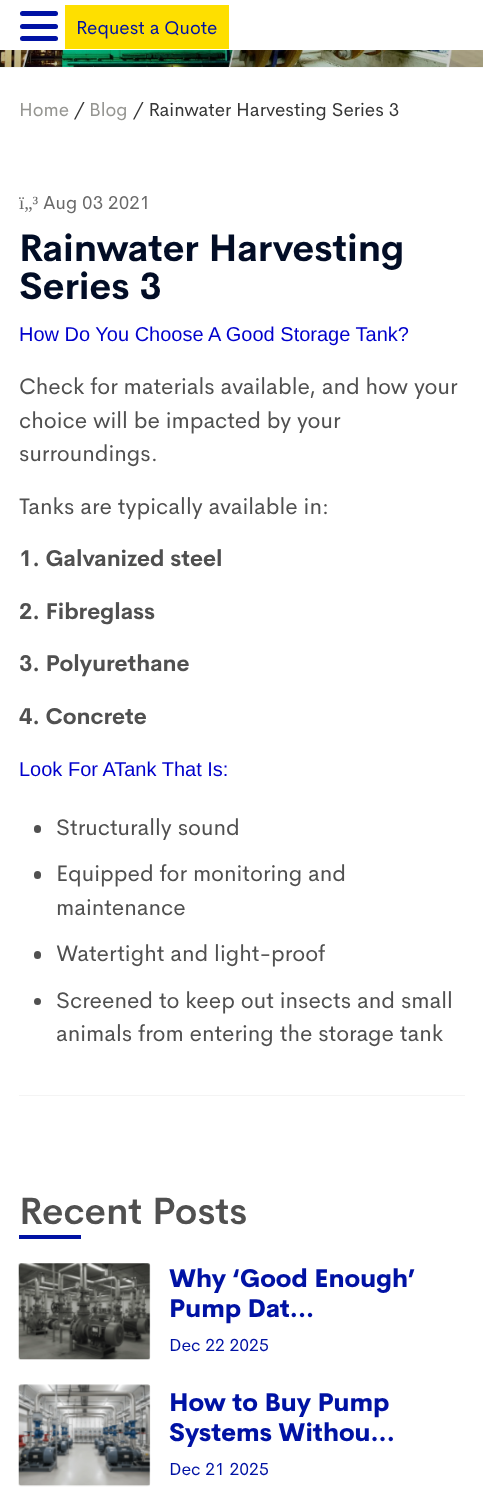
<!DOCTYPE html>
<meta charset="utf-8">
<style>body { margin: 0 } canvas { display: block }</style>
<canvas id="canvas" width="483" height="1496"></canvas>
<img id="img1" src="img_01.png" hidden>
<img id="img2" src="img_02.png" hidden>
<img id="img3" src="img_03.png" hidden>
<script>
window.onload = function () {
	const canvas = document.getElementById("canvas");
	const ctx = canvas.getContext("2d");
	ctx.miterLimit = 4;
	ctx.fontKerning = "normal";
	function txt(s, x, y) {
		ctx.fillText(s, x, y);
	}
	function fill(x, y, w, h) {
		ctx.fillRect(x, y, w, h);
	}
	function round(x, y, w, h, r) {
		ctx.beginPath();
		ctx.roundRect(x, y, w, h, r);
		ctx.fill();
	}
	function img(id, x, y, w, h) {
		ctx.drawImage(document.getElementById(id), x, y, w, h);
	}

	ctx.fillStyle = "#FFFFFF";
	fill(0, 0, 483, 1496);
	ctx.fillStyle = "#0012A4";
	round(20, 11, 38, 5, 2.5);
	round(20, 24, 38, 5, 2.5);
	round(20, 36, 38, 5, 2.5);
	ctx.fillStyle = "#FEDF00";
	fill(65, 5, 164, 44);
	ctx.fillStyle = "#F7F7F7";
	fill(0, 67, 483, 1);
	img("img1", 0, 50, 483, 17);
	ctx.fillStyle = "#505050";
	round(34, 825, 7, 8, 3.5);
	round(34, 871, 7, 8, 3.5);
	round(34, 951, 7, 8, 3.5);
	ctx.beginPath();
	ctx.arc(37.5, 1001.5, 3.5, 0, Math.PI * 2);
	ctx.fill();
	ctx.fillStyle = "#F4F4F4";
	fill(19, 1095, 446, 1);
	ctx.fillStyle = "#0012A4";
	fill(19, 1235, 62, 4);
	img("img2", 18, 1263, 133, 97);
	img("img3", 18, 1384, 133, 103);
	ctx.font = "18.75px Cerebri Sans";
	txt("Request a Quote", 76, 34);
	ctx.fillStyle = "#959591";
	txt("Home", 19, 116);
	ctx.fillStyle = "#353535";
	txt("/", 74, 116);
	ctx.fillStyle = "#959591";
	txt("Blog", 89, 116);
	ctx.fillStyle = "#353535";
	txt("/ Rainwater Harvesting Series 3", 133, 116);
	ctx.font = "18.75px Liberation Serif";
	ctx.fillStyle = "#696969";
	txt("ï„³", 19, 209);
	ctx.font = "18.75px Cerebri Sans";
	txt("Aug 03 2021", 43, 209);
	ctx.font = "bold 37.5px Cerebri Sans";
	ctx.fillStyle = "#020D26";
	txt("Rainwater Harvesting", 19, 261);
	txt("Series 3", 19, 299);
	ctx.font = "20px Liberation Sans";
	ctx.fillStyle = "#0000CC";
	txt("How Do You Choose A Good Storage Tank?", 19, 341);
	ctx.font = "22.5px Cerebri Sans";
	ctx.fillStyle = "#505050";
	txt("Check for materials available, and how your", 19, 394);
	txt("choice will be impacted by your", 19, 428);
	txt("surroundings.", 19, 461);
	txt("Tanks are typically available in:", 19, 514);
	ctx.font = "bold 22.5px Cerebri Sans";
	txt("1. Galvanized steel", 19, 566);
	txt("2. Fibreglass", 19, 619);
	txt("3. Polyurethane", 19, 671);
	txt("4. Concrete", 19, 724);
	ctx.font = "20px Liberation Sans";
	ctx.fillStyle = "#0000CC";
	txt("Look For ATank That Is:", 19, 776);
	ctx.font = "22.5px Cerebri Sans";
	ctx.fillStyle = "#505050";
	txt("Structurally sound", 56, 835);
	txt("Equipped for monitoring and", 56, 881);
	txt("maintenance", 56, 915);
	txt("Watertight and light-proof", 56, 961);
	txt("Screened to keep out insects and small", 56, 1008);
	txt("animals from entering the storage tank", 56, 1041);
	ctx.font = "600 37.5px Cerebri Sans";
	txt("Recent Posts", 19, 1224);
	ctx.font = "800 25px Cerebri Sans";
	ctx.fillStyle = "#0012A4";
	txt("Why ‘Good Enough’", 169, 1287);
	txt("Pump Dat...", 169, 1317);
	ctx.font = "17.5px Cerebri Sans";
	txt("Dec 22 2025", 169, 1351);
	ctx.font = "800 25px Cerebri Sans";
	txt("How to Buy Pump", 169, 1411);
	txt("Systems Withou...", 169, 1441);
	ctx.font = "17.5px Cerebri Sans";
	txt("Dec 21 2025", 169, 1475);
};
</script>
